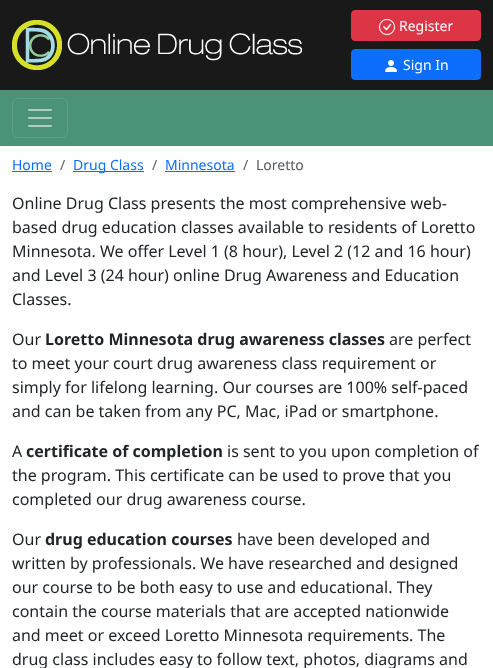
<!DOCTYPE html>
<meta charset="utf-8">
<style>body { margin: 0 } canvas { display: block }</style>
<canvas id="canvas" width="493" height="668"></canvas>
<img id="img1" src="img_01.png" hidden>
<img id="img2" src="img_02.png" hidden>
<img id="img3" src="img_03.png" hidden>
<img id="img4" src="img_04.png" hidden>
<script>
window.onload = function () {
	const canvas = document.getElementById("canvas");
	const ctx = canvas.getContext("2d");
	ctx.miterLimit = 4;
	ctx.fontKerning = "normal";
	function txt(s, x, y) {
		ctx.fillText(s, x, y);
	}
	function fill(x, y, w, h) {
		ctx.fillRect(x, y, w, h);
	}
	function img(id, x, y, w, h) {
		ctx.drawImage(document.getElementById(id), x, y, w, h);
	}

	ctx.fillStyle = "#FFFFFF";
	fill(0, 0, 493, 668);
	ctx.fillStyle = "#191919";
	fill(0, 0, 493, 90);
	img("img1", 12, 20, 290, 50);
	ctx.fillStyle = "#DC3545";
	ctx.beginPath();
	ctx.roundRect(351.5, 10.5, 129, 30, 3.5);
	ctx.fill();
	ctx.strokeStyle = "#DC3545";
	ctx.stroke();
	img("img2", 379, 19, 16, 16);
	ctx.fillStyle = "#0D6EFD";
	ctx.beginPath();
	ctx.roundRect(351.5, 49.5, 129, 30, 3.5);
	ctx.fill();
	ctx.strokeStyle = "#0D6EFD";
	ctx.stroke();
	img("img3", 385, 60, 12, 12);
	ctx.fillStyle = "#4B9376";
	fill(0, 90, 493, 56);
	ctx.beginPath();
	ctx.roundRect(12.5, 98.5, 55, 39, 5.5);
	ctx.strokeStyle = "#5D9E84";
	ctx.stroke();
	img("img4", 28, 109, 24, 18);
	ctx.fillStyle = "#0D6EFD";
	fill(12, 171, 40, 1);
	fill(73, 171, 71, 1);
	fill(165, 171, 70, 1);
	ctx.font = "14px Noto Sans";
	ctx.fillStyle = "#FFFFFF";
	txt("Register", 399, 31);
	txt("Sign In", 403, 70);
	ctx.fillStyle = "#0D6EFD";
	txt("Home", 12, 170);
	ctx.fillStyle = "#595C5F";
	txt("/", 60, 170);
	ctx.fillStyle = "#0D6EFD";
	txt("Drug Class", 73, 170);
	ctx.fillStyle = "#595C5F";
	txt("/", 152, 170);
	ctx.fillStyle = "#0D6EFD";
	txt("Minnesota", 165, 170);
	ctx.fillStyle = "#595C5F";
	txt("/", 243, 170);
	txt("Loretto", 256, 170);
	ctx.font = "16px Noto Sans";
	ctx.fillStyle = "#212529";
	txt("Online Drug Class presents the most comprehensive web-", 12, 209);
	txt("based drug education classes available to residents of Loretto", 12, 233);
	txt("Minnesota. We offer Level 1 (8 hour), Level 2 (12 and 16 hour)", 12, 257);
	txt("and Level 3 (24 hour) online Drug Awareness and Education", 12, 281);
	txt("Classes.", 12, 305);
	txt("Our", 12, 345);
	ctx.font = "bold 16px Noto Sans";
	txt("Loretto Minnesota drug awareness classes", 45, 345);
	ctx.font = "16px Noto Sans";
	txt("are perfect", 389, 345);
	txt("to meet your court drug awareness class requirement or", 12, 369);
	txt("simply for lifelong learning. Our courses are 100% self-paced", 12, 393);
	txt("and can be taken from any PC, Mac, iPad or smartphone.", 12, 417);
	txt("A", 12, 457);
	ctx.font = "bold 16px Noto Sans";
	txt("certificate of completion", 26, 457);
	ctx.font = "16px Noto Sans";
	txt("is sent to you upon completion of", 227, 457);
	txt("the program. This certificate can be used to prove that you", 12, 481);
	txt("completed our drug awareness course.", 12, 505);
	txt("Our", 12, 545);
	ctx.font = "bold 16px Noto Sans";
	txt("drug education courses", 45, 545);
	ctx.font = "16px Noto Sans";
	txt("have been developed and", 237, 545);
	txt("written by professionals. We have researched and designed", 12, 569);
	txt("our course to be both easy to use and educational. They", 12, 593);
	txt("contain the course materials that are accepted nationwide", 12, 617);
	txt("and meet or exceed Loretto Minnesota requirements. The", 12, 641);
	txt("drug class includes easy to follow text, photos, diagrams and", 12, 665);
};
</script>
